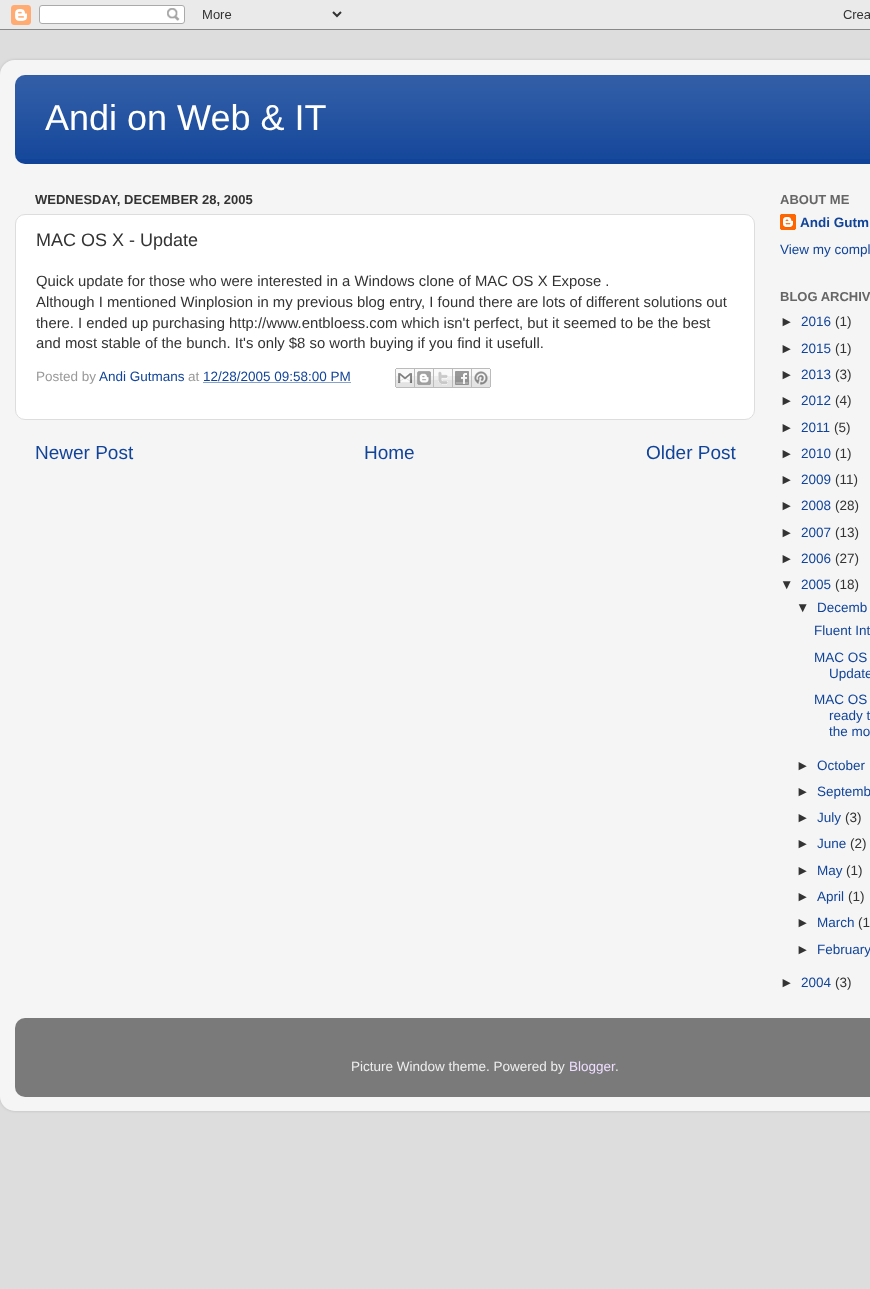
<!DOCTYPE html>
<meta charset="utf-8">
<style>body { margin: 0 } canvas { display: block }</style>
<canvas id="canvas" width="870" height="1289"></canvas>
<img id="img1" src="img_01.png" hidden>
<img id="img2" src="img_02.png" hidden>
<img id="img3" src="img_03.png" hidden>
<img id="img4" src="img_04.png" hidden>
<img id="img5" src="img_05.png" hidden>
<img id="img6" src="img_06.png" hidden>
<img id="img7" src="img_07.png" hidden>
<img id="img8" src="img_08.png" hidden>
<img id="img9" src="img_09.png" hidden>
<img id="img10" src="img_10.png" hidden>
<script>
window.onload = function () {
	const canvas = document.getElementById("canvas");
	const ctx = canvas.getContext("2d");
	ctx.miterLimit = 4;
	ctx.fontKerning = "normal";
	function txt(s, x, y) {
		ctx.fillText(s, x, y);
	}
	function fill(x, y, w, h) {
		ctx.fillRect(x, y, w, h);
	}
	function round(x, y, w, h, r) {
		ctx.beginPath();
		ctx.roundRect(x, y, w, h, r);
		ctx.fill();
	}
	function img(id, x, y, w, h) {
		ctx.drawImage(document.getElementById(id), x, y, w, h);
	}

	ctx.fillStyle = "#DDDDDD";
	fill(0, 0, 870, 1289);
	img("img1", 0, 0, 870, 30);
	ctx.save();
	ctx.beginPath();
	ctx.moveTo(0, 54);
	ctx.lineTo(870, 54);
	ctx.lineTo(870, 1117);
	ctx.lineTo(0, 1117);
	ctx.closePath();
	ctx.moveTo(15, 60);
	ctx.lineTo(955, 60);
	ctx.bezierCurveTo(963.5, 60, 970, 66.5, 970, 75);
	ctx.lineTo(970, 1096);
	ctx.bezierCurveTo(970, 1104.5, 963.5, 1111, 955, 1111);
	ctx.lineTo(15, 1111);
	ctx.bezierCurveTo(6.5, 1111, 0, 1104.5, 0, 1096);
	ctx.lineTo(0, 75);
	ctx.bezierCurveTo(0, 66.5, 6.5, 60, 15, 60);
	ctx.closePath();
	ctx.clip("evenodd");
	ctx.fillStyle = "rgba(0, 0, 0, 0.15)";
	ctx.filter = "blur(1.5px)";
	ctx.beginPath();
	ctx.roundRect(0, 60, 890, 1051, 15);
	ctx.fill();
	ctx.filter = "none";
	ctx.restore();
	img("img2", 0, 60, 870, 1051);
	ctx.fillStyle = "#114499";
	round(15, 75, 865, 89, 10);
	img("img3", 15, 75, 855, 84);
	ctx.fillStyle = "#FFFFFF";
	ctx.beginPath();
	ctx.roundRect(15.5, 214.5, 739, 205, 9.5);
	ctx.fill();
	ctx.strokeStyle = "#DDDDDD";
	ctx.stroke();
	ctx.beginPath();
	ctx.moveTo(203.5, 382.5);
	ctx.lineTo(351, 382.5);
	ctx.strokeStyle = "#114499";
	ctx.setLineDash([1, 1]);
	ctx.stroke();
	img("img4", 395, 368, 20, 20);
	img("img5", 415, 368, 19, 20);
	img("img6", 434, 368, 19, 20);
	img("img7", 453, 368, 19, 20);
	img("img8", 472, 368, 19, 20);
	img("img9", 780, 214, 16, 16);
	img("img10", 15, 1018, 855, 79);
	ctx.font = "36px Liberation Sans";
	txt("Andi on Web & IT", 45, 130);
	ctx.font = "bold 13px Liberation Sans";
	ctx.fillStyle = "#333333";
	txt("WEDNESDAY, DECEMBER 28, 2005", 35, 204);
	ctx.font = "18px Liberation Sans";
	txt("MAC OS X - Update", 36, 246);
	ctx.font = "14.85px Liberation Sans";
	txt("Quick update for those who were interested in a Windows clone of MAC OS X Expose .", 36, 286);
	txt("Although I mentioned Winplosion in my previous blog entry, I found there are lots of different solutions out", 36, 307);
	txt("there. I ended up purchasing http://www.entbloess.com which isn't perfect, but it seemed to be the best", 36, 328);
	txt("and most stable of the bunch. It's only $8 so worth buying if you find it usefull.", 36, 348);
	ctx.font = "13.5px Liberation Sans";
	ctx.fillStyle = "#999999";
	txt("Posted by", 36, 381);
	ctx.fillStyle = "#114499";
	txt("Andi Gutmans", 99, 381);
	ctx.fillStyle = "#999999";
	txt("at", 188, 381);
	ctx.fillStyle = "#114499";
	txt("12/28/2005 09:58:00 PM", 203, 381);
	ctx.font = "19px Liberation Sans";
	txt("Newer Post", 35, 459);
	txt("Home", 364, 459);
	txt("Older Post", 646, 459);
	ctx.font = "bold 13px Liberation Sans";
	ctx.fillStyle = "#666666";
	txt("ABOUT ME", 780, 204);
	ctx.font = "bold 13.5px Liberation Sans";
	ctx.fillStyle = "#114499";
	txt("Andi Gutm", 800, 227);
	ctx.font = "13.5px Liberation Sans";
	txt("View my compl", 780, 254);
	ctx.font = "bold 13px Liberation Sans";
	ctx.fillStyle = "#666666";
	txt("BLOG ARCHIV", 780, 301);
	ctx.font = "13.5px Liberation Sans";
	ctx.fillStyle = "#333333";
	txt("►", 780, 326);
	ctx.fillStyle = "#114499";
	txt("2016", 801, 326);
	ctx.fillStyle = "#333333";
	txt("(1)", 835, 326);
	txt("►", 780, 353);
	ctx.fillStyle = "#114499";
	txt("2015", 801, 353);
	ctx.fillStyle = "#333333";
	txt("(1)", 835, 353);
	txt("►", 780, 379);
	ctx.fillStyle = "#114499";
	txt("2013", 801, 379);
	ctx.fillStyle = "#333333";
	txt("(3)", 835, 379);
	txt("►", 780, 405);
	ctx.fillStyle = "#114499";
	txt("2012", 801, 405);
	ctx.fillStyle = "#333333";
	txt("(4)", 835, 405);
	txt("►", 780, 432);
	ctx.fillStyle = "#114499";
	txt("2011", 801, 432);
	ctx.fillStyle = "#333333";
	txt("(5)", 834, 432);
	txt("►", 780, 458);
	ctx.fillStyle = "#114499";
	txt("2010", 801, 458);
	ctx.fillStyle = "#333333";
	txt("(1)", 835, 458);
	txt("►", 780, 484);
	ctx.fillStyle = "#114499";
	txt("2009", 801, 484);
	ctx.fillStyle = "#333333";
	txt("(11)", 835, 484);
	txt("►", 780, 510);
	ctx.fillStyle = "#114499";
	txt("2008", 801, 510);
	ctx.fillStyle = "#333333";
	txt("(28)", 835, 510);
	txt("►", 780, 537);
	ctx.fillStyle = "#114499";
	txt("2007", 801, 537);
	ctx.fillStyle = "#333333";
	txt("(13)", 835, 537);
	txt("►", 780, 563);
	ctx.fillStyle = "#114499";
	txt("2006", 801, 563);
	ctx.fillStyle = "#333333";
	txt("(27)", 835, 563);
	txt("▼", 780, 589);
	ctx.fillStyle = "#114499";
	txt("2005", 801, 589);
	ctx.fillStyle = "#333333";
	txt("(18)", 835, 589);
	txt("▼", 796, 612);
	ctx.fillStyle = "#114499";
	txt("Decemb", 817, 612);
	txt("Fluent Int", 814, 635);
	txt("MAC OS", 814, 662);
	txt("Update", 829, 678);
	txt("MAC OS", 814, 704);
	txt("ready t", 829, 720);
	txt("the mo", 829, 736);
	ctx.fillStyle = "#333333";
	txt("►", 796, 770);
	ctx.fillStyle = "#114499";
	txt("October", 817, 770);
	ctx.fillStyle = "#333333";
	txt("►", 796, 796);
	ctx.fillStyle = "#114499";
	txt("Septemb", 817, 796);
	ctx.fillStyle = "#333333";
	txt("►", 796, 822);
	ctx.fillStyle = "#114499";
	txt("July", 817, 822);
	ctx.fillStyle = "#333333";
	txt("(3)", 845, 822);
	txt("►", 796, 848);
	ctx.fillStyle = "#114499";
	txt("June", 817, 848);
	ctx.fillStyle = "#333333";
	txt("(2)", 850, 848);
	txt("►", 796, 875);
	ctx.fillStyle = "#114499";
	txt("May", 817, 875);
	ctx.fillStyle = "#333333";
	txt("(1)", 846, 875);
	txt("►", 796, 901);
	ctx.fillStyle = "#114499";
	txt("April", 817, 901);
	ctx.fillStyle = "#333333";
	txt("(1)", 848, 901);
	txt("►", 796, 927);
	ctx.fillStyle = "#114499";
	txt("March", 817, 927);
	ctx.fillStyle = "#333333";
	txt("(1", 858, 927);
	txt("►", 796, 954);
	ctx.fillStyle = "#114499";
	txt("February", 817, 954);
	ctx.fillStyle = "#333333";
	txt("►", 780, 987);
	ctx.fillStyle = "#114499";
	txt("2004", 801, 987);
	ctx.fillStyle = "#333333";
	txt("(3)", 835, 987);
	ctx.fillStyle = "#EEEEEE";
	txt("Picture Window theme. Powered by", 351, 1071);
	ctx.fillStyle = "#EEDDFF";
	txt("Blogger", 569, 1071);
	ctx.fillStyle = "#EEEEEE";
	txt(".", 615, 1071);
};
</script>
